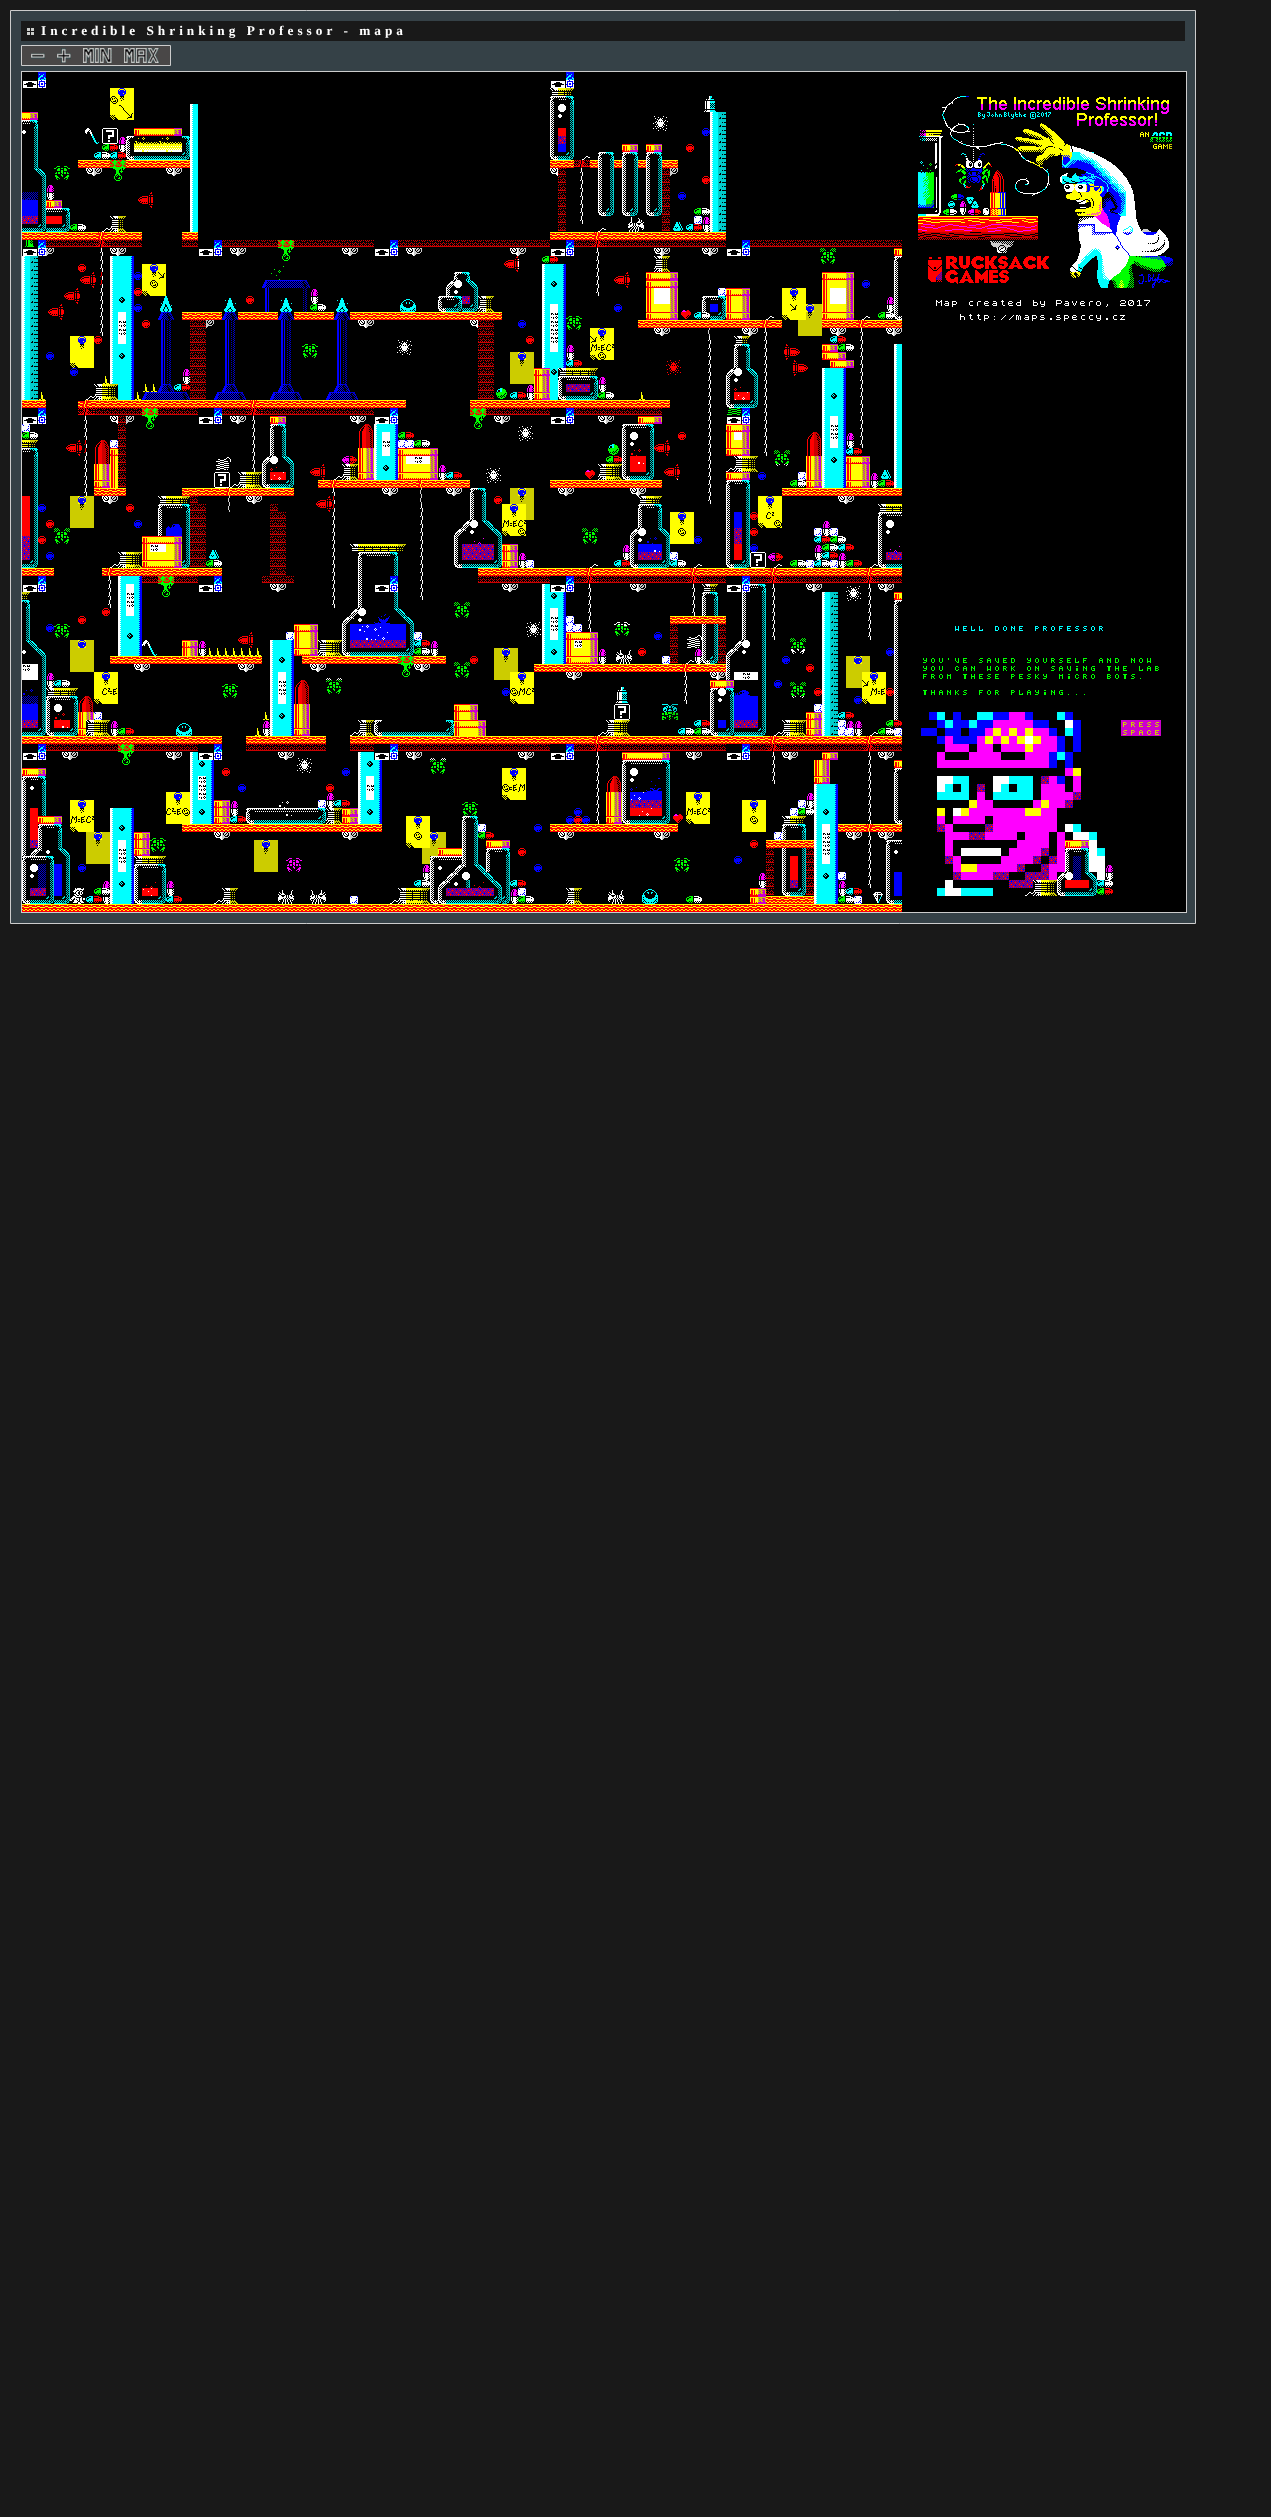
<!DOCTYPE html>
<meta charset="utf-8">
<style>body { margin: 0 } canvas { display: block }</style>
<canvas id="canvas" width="1271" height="2517"></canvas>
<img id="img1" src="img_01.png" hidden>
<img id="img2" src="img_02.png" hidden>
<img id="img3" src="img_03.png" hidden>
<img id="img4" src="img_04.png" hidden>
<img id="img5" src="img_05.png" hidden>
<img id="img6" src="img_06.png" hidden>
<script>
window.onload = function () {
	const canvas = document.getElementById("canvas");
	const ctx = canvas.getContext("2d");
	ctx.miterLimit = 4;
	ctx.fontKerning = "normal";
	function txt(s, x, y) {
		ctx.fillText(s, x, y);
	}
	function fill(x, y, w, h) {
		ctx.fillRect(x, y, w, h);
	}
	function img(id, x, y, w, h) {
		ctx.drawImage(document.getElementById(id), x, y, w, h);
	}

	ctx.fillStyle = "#191919";
	fill(0, 0, 1271, 2517);
	ctx.fillStyle = "#354147";
	ctx.beginPath();
	ctx.rect(10.5, 10.5, 1185, 913);
	ctx.fill();
	ctx.strokeStyle = "#CCCCCC";
	ctx.stroke();
	ctx.fillStyle = "#191919";
	fill(21, 21, 1164, 20);
	img("img1", 27, 28, 7, 7);
	ctx.fillStyle = "#494747";
	ctx.beginPath();
	ctx.rect(21.5, 45.5, 149, 20);
	ctx.fill();
	ctx.stroke();
	img("img2", 31, 53, 14, 6);
	img("img3", 57, 48, 14, 15);
	img("img4", 83, 48, 29, 15);
	img("img5", 124, 48, 36, 15);
	ctx.strokeRect(21.5, 71.5, 1165, 841);
	img("img6", 22, 72, 1164, 840);
	ctx.letterSpacing = "4px";
	ctx.font = "bold 13.3px Liberation Serif";
	ctx.fillStyle = "#FFFFFF";
	txt("Incredible Shrinking Professor - mapa", 41, 35);
};
</script>
